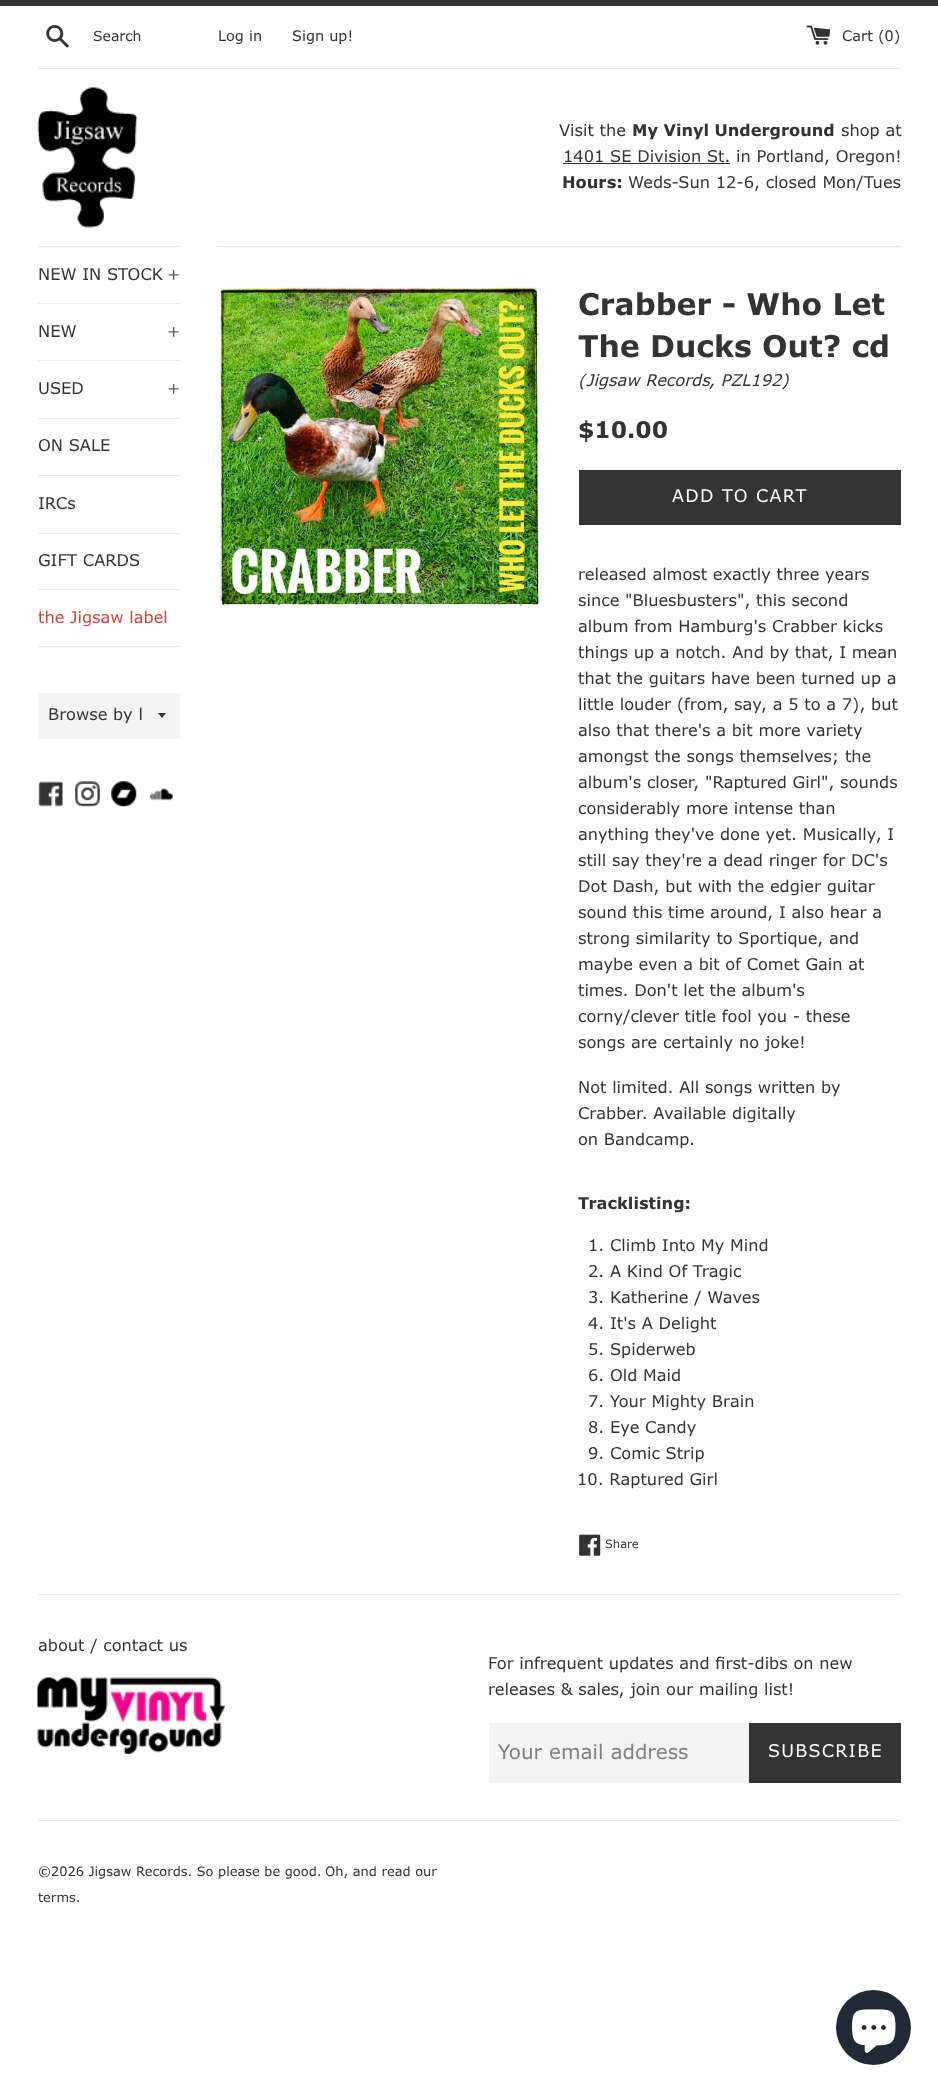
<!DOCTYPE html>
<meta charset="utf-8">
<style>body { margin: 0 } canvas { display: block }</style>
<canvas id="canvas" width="938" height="2091"></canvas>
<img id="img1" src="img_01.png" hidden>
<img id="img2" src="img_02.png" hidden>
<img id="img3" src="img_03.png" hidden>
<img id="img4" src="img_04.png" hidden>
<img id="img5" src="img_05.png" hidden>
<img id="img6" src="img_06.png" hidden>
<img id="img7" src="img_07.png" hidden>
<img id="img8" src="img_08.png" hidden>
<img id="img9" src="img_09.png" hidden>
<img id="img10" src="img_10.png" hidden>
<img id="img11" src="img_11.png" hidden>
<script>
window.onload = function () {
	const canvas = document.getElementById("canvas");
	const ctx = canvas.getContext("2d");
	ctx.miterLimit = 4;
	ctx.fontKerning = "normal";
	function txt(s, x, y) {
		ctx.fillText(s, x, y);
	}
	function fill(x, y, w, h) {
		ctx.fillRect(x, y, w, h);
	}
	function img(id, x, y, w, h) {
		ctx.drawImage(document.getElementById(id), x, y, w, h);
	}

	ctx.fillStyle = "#FFFFFF";
	fill(0, 0, 938, 2091);
	ctx.fillStyle = "#333333";
	fill(0, 0, 938, 6);
	img("img1", 46, 25, 23, 23);
	img("img2", 806, 25, 25, 20);
	ctx.fillStyle = "#E8E8E8";
	fill(38, 68, 863, 1);
	img("img3", 37, 87, 101, 141);
	ctx.fillStyle = "#333333";
	fill(563, 163, 167, 1);
	ctx.fillStyle = "#E8E8E8";
	fill(38, 246, 142, 1);
	fill(38, 303, 142, 1);
	fill(38, 360, 142, 1);
	fill(38, 418, 142, 1);
	fill(38, 475, 142, 1);
	fill(38, 533, 142, 1);
	fill(38, 589, 142, 1);
	fill(38, 646, 142, 1);
	ctx.fillStyle = "#F4F4F4";
	fill(38, 693, 142, 46);
	ctx.save();
	ctx.beginPath();
	ctx.rect(158, 713, 10, 6);
	ctx.clip();
	ctx.fillStyle = "#333333";
	ctx.beginPath();
	ctx.moveTo(157.5, 712.5);
	ctx.lineTo(162, 718);
	ctx.lineTo(166.5, 712.5);
	ctx.closePath();
	ctx.fill();
	ctx.restore();
	img("img4", 38, 781, 25, 26);
	img("img5", 75, 781, 25, 26);
	img("img6", 111, 781, 26, 26);
	img("img7", 149, 788, 24, 13);
	ctx.fillStyle = "#E8E8E8";
	fill(218, 246, 683, 1);
	img("img8", 217, 285, 324, 323);
	ctx.fillStyle = "#333333";
	fill(579, 470, 322, 55);
	img("img9", 579, 1534, 22, 22);
	ctx.fillStyle = "#E8E8E8";
	fill(38, 1594, 863, 1);
	img("img10", 37, 1677, 188, 77);
	ctx.fillStyle = "#F4F4F4";
	fill(489, 1723, 260, 60);
	ctx.fillStyle = "#333333";
	fill(749, 1723, 152, 60);
	ctx.fillStyle = "#E8E8E8";
	fill(38, 1820, 863, 1);
	ctx.fillStyle = "#202A36";
	ctx.beginPath();
	ctx.arc(873.5, 2027.5, 37.5, 0, Math.PI * 2);
	ctx.fill();
	img("img11", 852, 2009, 44, 44);
	ctx.font = "14px Verdana";
	ctx.fillStyle = "#333333";
	txt("Search", 93, 41);
	ctx.font = "14.5px Verdana";
	txt("Log in", 218, 41);
	txt("Sign up!", 292, 41);
	txt("Cart (0)", 842, 41);
	ctx.font = "16.25px Verdana";
	txt("Visit the", 559, 136);
	ctx.font = "bold 16.25px Verdana";
	txt("My Vinyl Underground", 632, 136);
	ctx.font = "16.25px Verdana";
	txt("shop at", 841, 136);
	txt("1401 SE Division St. in Portland, Oregon!", 563, 162);
	ctx.font = "bold 16.25px Verdana";
	txt("Hours:", 562, 188);
	ctx.font = "16.25px Verdana";
	txt("Weds-Sun 12-6, closed Mon/Tues", 628, 188);
	txt("NEW IN STOCK", 38, 280);
	ctx.fillStyle = "#5C5C5C";
	txt("+", 167, 280);
	ctx.fillStyle = "#333333";
	txt("NEW", 38, 337);
	ctx.fillStyle = "#5C5C5C";
	txt("+", 167, 337);
	ctx.fillStyle = "#333333";
	txt("USED", 38, 394);
	ctx.fillStyle = "#5C5C5C";
	txt("+", 167, 394);
	ctx.fillStyle = "#333333";
	txt("ON SALE", 38, 451);
	txt("IRCs", 38, 509);
	txt("GIFT CARDS", 38, 566);
	ctx.fillStyle = "#C8493F";
	txt("the Jigsaw label", 38, 623);
	ctx.fillStyle = "#333333";
	txt("Browse by l", 48, 720);
	ctx.font = "bold 30px Verdana";
	txt("Crabber - Who Let", 578, 315);
	txt("The Ducks Out? cd", 578, 357);
	ctx.font = "italic 16.25px Verdana";
	txt("(", 578, 386);
	txt("Jigsaw Records", 586, 386);
	txt(", PZL192)", 709, 386);
	ctx.font = "bold 23px Verdana";
	txt("$10.00", 578, 438);
	ctx.letterSpacing = "1.25px";
	ctx.font = "17.5px Verdana";
	ctx.fillStyle = "#FFFFFF";
	txt("ADD TO CART", 672, 502);
	ctx.letterSpacing = "0px";
	ctx.font = "16.25px Verdana";
	ctx.fillStyle = "#333333";
	txt("released almost exactly three years", 578, 580);
	txt("since \"Bluesbusters\", this second", 578, 606);
	txt("album from Hamburg's Crabber kicks", 578, 632);
	txt("things up a notch. And by that, I mean", 578, 658);
	txt("that the guitars have been turned up a", 578, 684);
	txt("little louder (from, say, a 5 to a 7), but", 578, 710);
	txt("also that there's a bit more variety", 578, 736);
	txt("amongst the songs themselves; the", 578, 762);
	txt("album's closer, \"Raptured Girl\", sounds", 578, 788);
	txt("considerably more intense than", 578, 814);
	txt("anything they've done yet. Musically, I", 578, 840);
	txt("still say they're a dead ringer for DC's", 578, 866);
	txt("Dot Dash, but with the edgier guitar", 578, 892);
	txt("sound this time around, I also hear a", 578, 918);
	txt("strong similarity to Sportique, and", 578, 944);
	txt("maybe even a bit of Comet Gain at", 578, 970);
	txt("times. Don't let the album's", 578, 996);
	txt("corny/clever title fool you - these", 578, 1022);
	txt("songs are certainly no joke!", 578, 1048);
	txt("Not limited. All songs written by", 578, 1093);
	txt("Crabber. Available digitally", 578, 1119);
	txt("on Bandcamp.", 578, 1145);
	ctx.font = "bold 16.25px Verdana";
	txt("Tracklisting:", 578, 1209);
	ctx.font = "16.25px Verdana";
	txt("1. Climb Into My Mind", 588, 1251);
	txt("2. A Kind Of Tragic", 588, 1277);
	txt("3. Katherine / Waves", 588, 1303);
	txt("4. It's A Delight", 588, 1329);
	txt("5. Spiderweb", 588, 1355);
	txt("6. Old Maid", 588, 1381);
	txt("7. Your Mighty Brain", 588, 1407);
	txt("8. Eye Candy", 588, 1433);
	txt("9. Comic Strip", 588, 1459);
	txt("10. Raptured Girl", 577, 1485);
	ctx.font = "11.5px Verdana";
	txt("Share", 605, 1548);
	ctx.font = "16.25px Verdana";
	txt("about / contact us", 38, 1651);
	txt("For infrequent updates and first-dibs on new", 488, 1669);
	txt("releases & sales, join our mailing list!", 488, 1695);
	ctx.font = "20px Verdana";
	ctx.fillStyle = "#808080";
	txt("Your email address", 498, 1759);
	ctx.letterSpacing = "1.25px";
	ctx.font = "17.5px Verdana";
	ctx.fillStyle = "#FFFFFF";
	txt("SUBSCRIBE", 768, 1757);
	ctx.letterSpacing = "0px";
	ctx.font = "13px Verdana";
	ctx.fillStyle = "#333333";
	txt("©2026 Jigsaw Records. So please be good.", 38, 1876);
	txt("Oh, and read our", 325, 1876);
	txt("terms.", 38, 1902);
};
</script>
